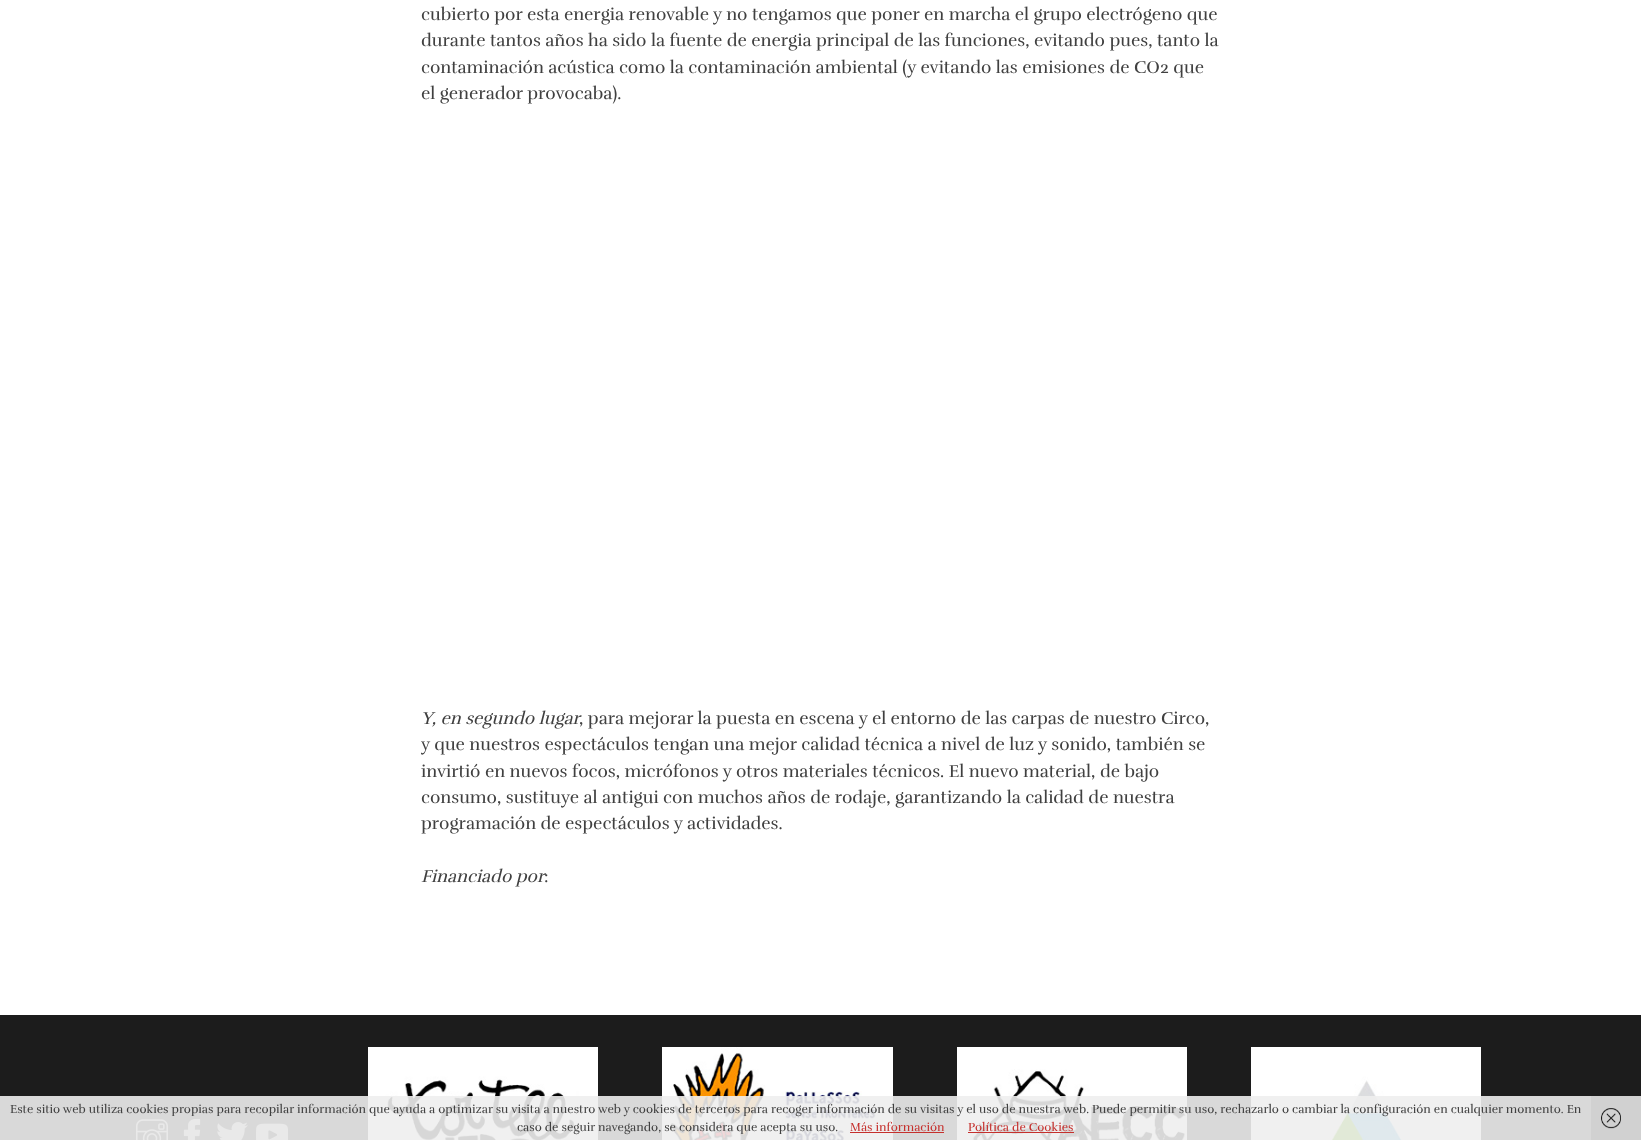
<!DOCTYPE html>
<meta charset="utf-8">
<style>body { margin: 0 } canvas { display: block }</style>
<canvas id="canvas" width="1641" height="1140"></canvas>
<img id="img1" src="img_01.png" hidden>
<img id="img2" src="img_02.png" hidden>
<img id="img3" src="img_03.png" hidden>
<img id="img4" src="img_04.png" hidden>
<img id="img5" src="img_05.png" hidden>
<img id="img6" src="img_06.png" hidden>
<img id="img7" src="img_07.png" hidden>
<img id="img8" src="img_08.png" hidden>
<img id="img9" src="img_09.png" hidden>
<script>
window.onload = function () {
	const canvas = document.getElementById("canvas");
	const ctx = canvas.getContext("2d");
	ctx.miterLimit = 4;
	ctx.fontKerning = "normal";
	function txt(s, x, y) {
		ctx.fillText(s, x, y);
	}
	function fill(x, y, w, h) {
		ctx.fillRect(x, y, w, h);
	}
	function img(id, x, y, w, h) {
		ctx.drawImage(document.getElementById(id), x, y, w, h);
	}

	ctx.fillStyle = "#FFFFFF";
	fill(0, 0, 1641, 1140);
	ctx.fillStyle = "#1C1C1C";
	fill(0, 1015, 1641, 125);
	img("img1", 136, 1119, 32, 21);
	img("img2", 183, 1119, 18, 21);
	img("img3", 217, 1122, 31, 18);
	img("img4", 256, 1123, 32, 17);
	img("img5", 368, 1047, 230, 93);
	img("img6", 662, 1047, 231, 93);
	img("img7", 957, 1047, 230, 93);
	img("img8", 1251, 1047, 230, 93);
	ctx.fillStyle = "rgba(238, 238, 238, 0.9)";
	fill(0, 1096, 1591, 44);
	ctx.fillStyle = "#C5302D";
	fill(850, 1132, 94, 1);
	fill(968, 1132, 106, 1);
	ctx.fillStyle = "#D1D1D1";
	fill(1591, 1096, 50, 44);
	img("img9", 1601, 1108, 20, 21);
	ctx.font = "17.6px Rufina";
	ctx.fillStyle = "#404040";
	txt("cubierto por esta energia renovable y no tengamos que poner en marcha el grupo electrógeno que", 421, 20);
	txt("durante tantos años ha sido la fuente de energia principal de las funciones, evitando pues, tanto la", 421, 46);
	txt("contaminación acústica como la contaminación ambiental (y evitando las emisiones de CO2 que", 421, 73);
	txt("el generador provocaba).", 421, 99);
	ctx.font = "italic 17.6px Rufina";
	txt("Y, en segundo lugar", 421, 724);
	ctx.font = "17.6px Rufina";
	txt(", para mejorar la puesta en escena y el entorno de las carpas de nuestro Circo,", 579, 724);
	txt("y que nuestros espectáculos tengan una mejor calidad técnica a nivel de luz y sonido, también se", 421, 750);
	txt("invirtió en nuevos focos, micrófonos y otros materiales técnicos. El nuevo material, de bajo", 421, 777);
	txt("consumo, sustituye al antigui con muchos años de rodaje, garantizando la calidad de nuestra", 421, 803);
	txt("programación de espectáculos y actividades.", 421, 829);
	ctx.font = "italic 17.6px Rufina";
	txt("Financiado por", 421, 882);
	ctx.font = "17.6px Rufina";
	txt(":", 544, 882);
	ctx.font = "12px Rufina";
	txt("Este sitio web utiliza cookies propias para recopilar información que ayuda a optimizar su visita a nuestro web y cookies de terceros para recoger información de su visitas y el uso de nuestra web. Puede permitir su uso, rechazarlo o cambiar la configuración en cualquier momento. En", 10, 1113);
	txt("caso de seguir navegando, se considera que acepta su uso.", 517, 1131);
	ctx.fillStyle = "#C5302D";
	txt("Más información", 850, 1131);
	txt("Política de Cookies", 968, 1131);
};
</script>
